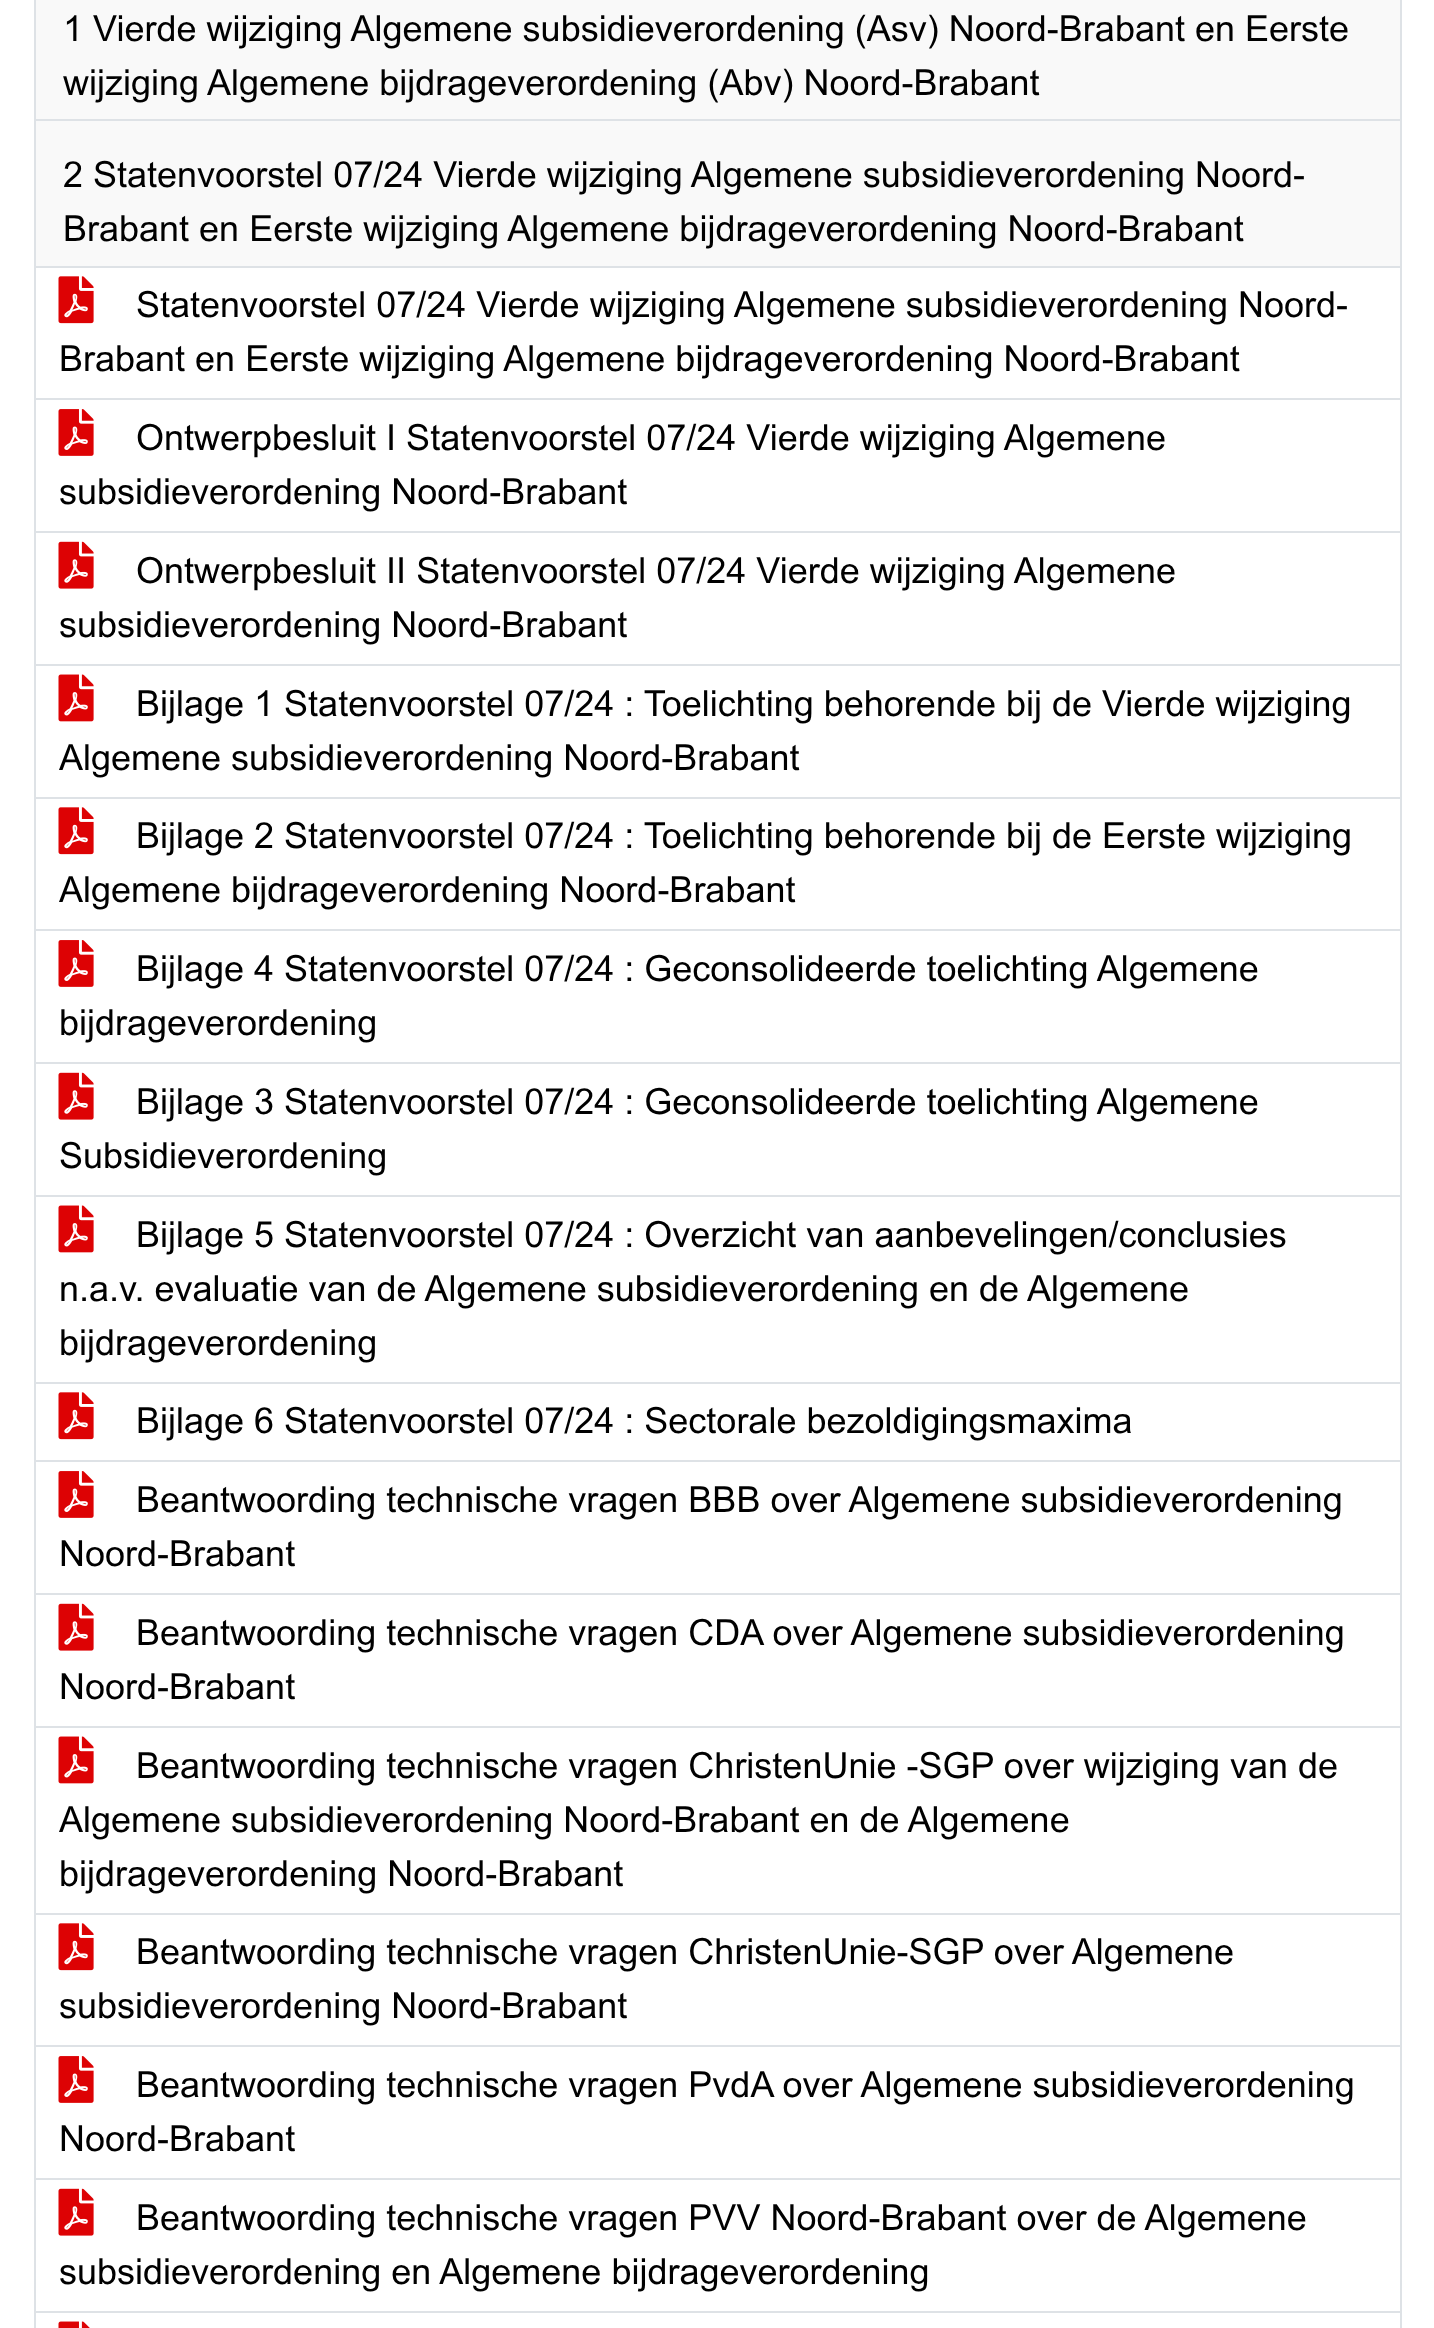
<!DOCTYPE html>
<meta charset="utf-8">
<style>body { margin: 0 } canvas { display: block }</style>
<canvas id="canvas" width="1434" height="2328"></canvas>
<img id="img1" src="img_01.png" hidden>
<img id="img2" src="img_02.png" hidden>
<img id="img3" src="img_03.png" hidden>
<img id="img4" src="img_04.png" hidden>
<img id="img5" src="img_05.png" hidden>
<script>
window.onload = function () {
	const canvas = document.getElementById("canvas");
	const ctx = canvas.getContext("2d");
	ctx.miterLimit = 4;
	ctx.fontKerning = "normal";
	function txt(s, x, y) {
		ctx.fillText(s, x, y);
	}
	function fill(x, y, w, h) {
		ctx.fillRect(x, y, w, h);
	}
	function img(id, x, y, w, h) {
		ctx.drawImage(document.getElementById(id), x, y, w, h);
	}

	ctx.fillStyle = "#FFFFFF";
	fill(0, 0, 1434, 2328);
	ctx.strokeStyle = "#DEE2E6";
	ctx.lineWidth = 2;
	ctx.strokeRect(35, -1, 1366, 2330);
	ctx.fillStyle = "#F9F9F9";
	fill(36, 0, 1364, 266);
	ctx.fillStyle = "#DEE2E6";
	fill(36, 119, 1364, 2);
	fill(36, 266, 1364, 2);
	fill(36, 398, 1364, 2);
	img("img1", 58, 276, 36, 48);
	fill(36, 531, 1364, 2);
	img("img2", 58, 409, 36, 47);
	fill(36, 664, 1364, 2);
	img("img3", 58, 541, 36, 48);
	fill(36, 797, 1364, 2);
	img("img4", 58, 674, 36, 48);
	fill(36, 929, 1364, 2);
	img("img1", 58, 807, 36, 48);
	fill(36, 1062, 1364, 2);
	img("img2", 58, 940, 36, 47);
	fill(36, 1195, 1364, 2);
	img("img3", 58, 1072, 36, 48);
	fill(36, 1382, 1364, 2);
	img("img4", 58, 1205, 36, 48);
	fill(36, 1460, 1364, 2);
	img("img1", 58, 1392, 36, 48);
	fill(36, 1593, 1364, 2);
	img("img2", 58, 1471, 36, 47);
	fill(36, 1726, 1364, 2);
	img("img3", 58, 1603, 36, 48);
	fill(36, 1913, 1364, 2);
	img("img4", 58, 1736, 36, 48);
	fill(36, 2045, 1364, 2);
	img("img1", 58, 1923, 36, 48);
	fill(36, 2178, 1364, 2);
	img("img2", 58, 2056, 36, 47);
	fill(36, 2311, 1364, 2);
	img("img3", 58, 2188, 36, 48);
	img("img5", 58, 2321, 32, 7);
	ctx.font = "36px Arial";
	ctx.fillStyle = "#000000";
	txt("1 Vierde wijziging Algemene subsidieverordening (Asv) Noord-Brabant en Eerste", 63, 41);
	txt("wijziging Algemene bijdrageverordening (Abv) Noord-Brabant", 63, 95);
	txt("2 Statenvoorstel 07/24 Vierde wijziging Algemene subsidieverordening Noord-", 63, 187);
	txt("Brabant en Eerste wijziging Algemene bijdrageverordening Noord-Brabant", 63, 241);
	txt("Statenvoorstel 07/24 Vierde wijziging Algemene subsidieverordening Noord-", 136, 317);
	txt("Brabant en Eerste wijziging Algemene bijdrageverordening Noord-Brabant", 59, 371);
	txt("Ontwerpbesluit I Statenvoorstel 07/24 Vierde wijziging Algemene", 136, 450);
	txt("subsidieverordening Noord-Brabant", 59, 504);
	txt("Ontwerpbesluit II Statenvoorstel 07/24 Vierde wijziging Algemene", 136, 583);
	txt("subsidieverordening Noord-Brabant", 59, 637);
	txt("Bijlage 1 Statenvoorstel 07/24 : Toelichting behorende bij de Vierde wijziging", 136, 716);
	txt("Algemene subsidieverordening Noord-Brabant", 59, 770);
	txt("Bijlage 2 Statenvoorstel 07/24 : Toelichting behorende bij de Eerste wijziging", 136, 848);
	txt("Algemene bijdrageverordening Noord-Brabant", 59, 902);
	txt("Bijlage 4 Statenvoorstel 07/24 : Geconsolideerde toelichting Algemene", 136, 981);
	txt("bijdrageverordening", 59, 1035);
	txt("Bijlage 3 Statenvoorstel 07/24 : Geconsolideerde toelichting Algemene", 136, 1114);
	txt("Subsidieverordening", 59, 1168);
	txt("Bijlage 5 Statenvoorstel 07/24 : Overzicht van aanbevelingen/conclusies", 136, 1247);
	txt("n.a.v. evaluatie van de Algemene subsidieverordening en de Algemene", 59, 1301);
	txt("bijdrageverordening", 59, 1355);
	txt("Bijlage 6 Statenvoorstel 07/24 : Sectorale bezoldigingsmaxima", 136, 1433);
	txt("Beantwoording technische vragen BBB over Algemene subsidieverordening", 136, 1512);
	txt("Noord-Brabant", 59, 1566);
	txt("Beantwoording technische vragen CDA over Algemene subsidieverordening", 136, 1645);
	txt("Noord-Brabant", 59, 1699);
	txt("Beantwoording technische vragen ChristenUnie -SGP over wijziging van de", 136, 1778);
	txt("Algemene subsidieverordening Noord-Brabant en de Algemene", 59, 1832);
	txt("bijdrageverordening Noord-Brabant", 59, 1886);
	txt("Beantwoording technische vragen ChristenUnie-SGP over Algemene", 136, 1964);
	txt("subsidieverordening Noord-Brabant", 59, 2018);
	txt("Beantwoording technische vragen PvdA over Algemene subsidieverordening", 136, 2097);
	txt("Noord-Brabant", 59, 2151);
	txt("Beantwoording technische vragen PVV Noord-Brabant over de Algemene", 136, 2230);
	txt("subsidieverordening en Algemene bijdrageverordening", 59, 2284);
};
</script>
